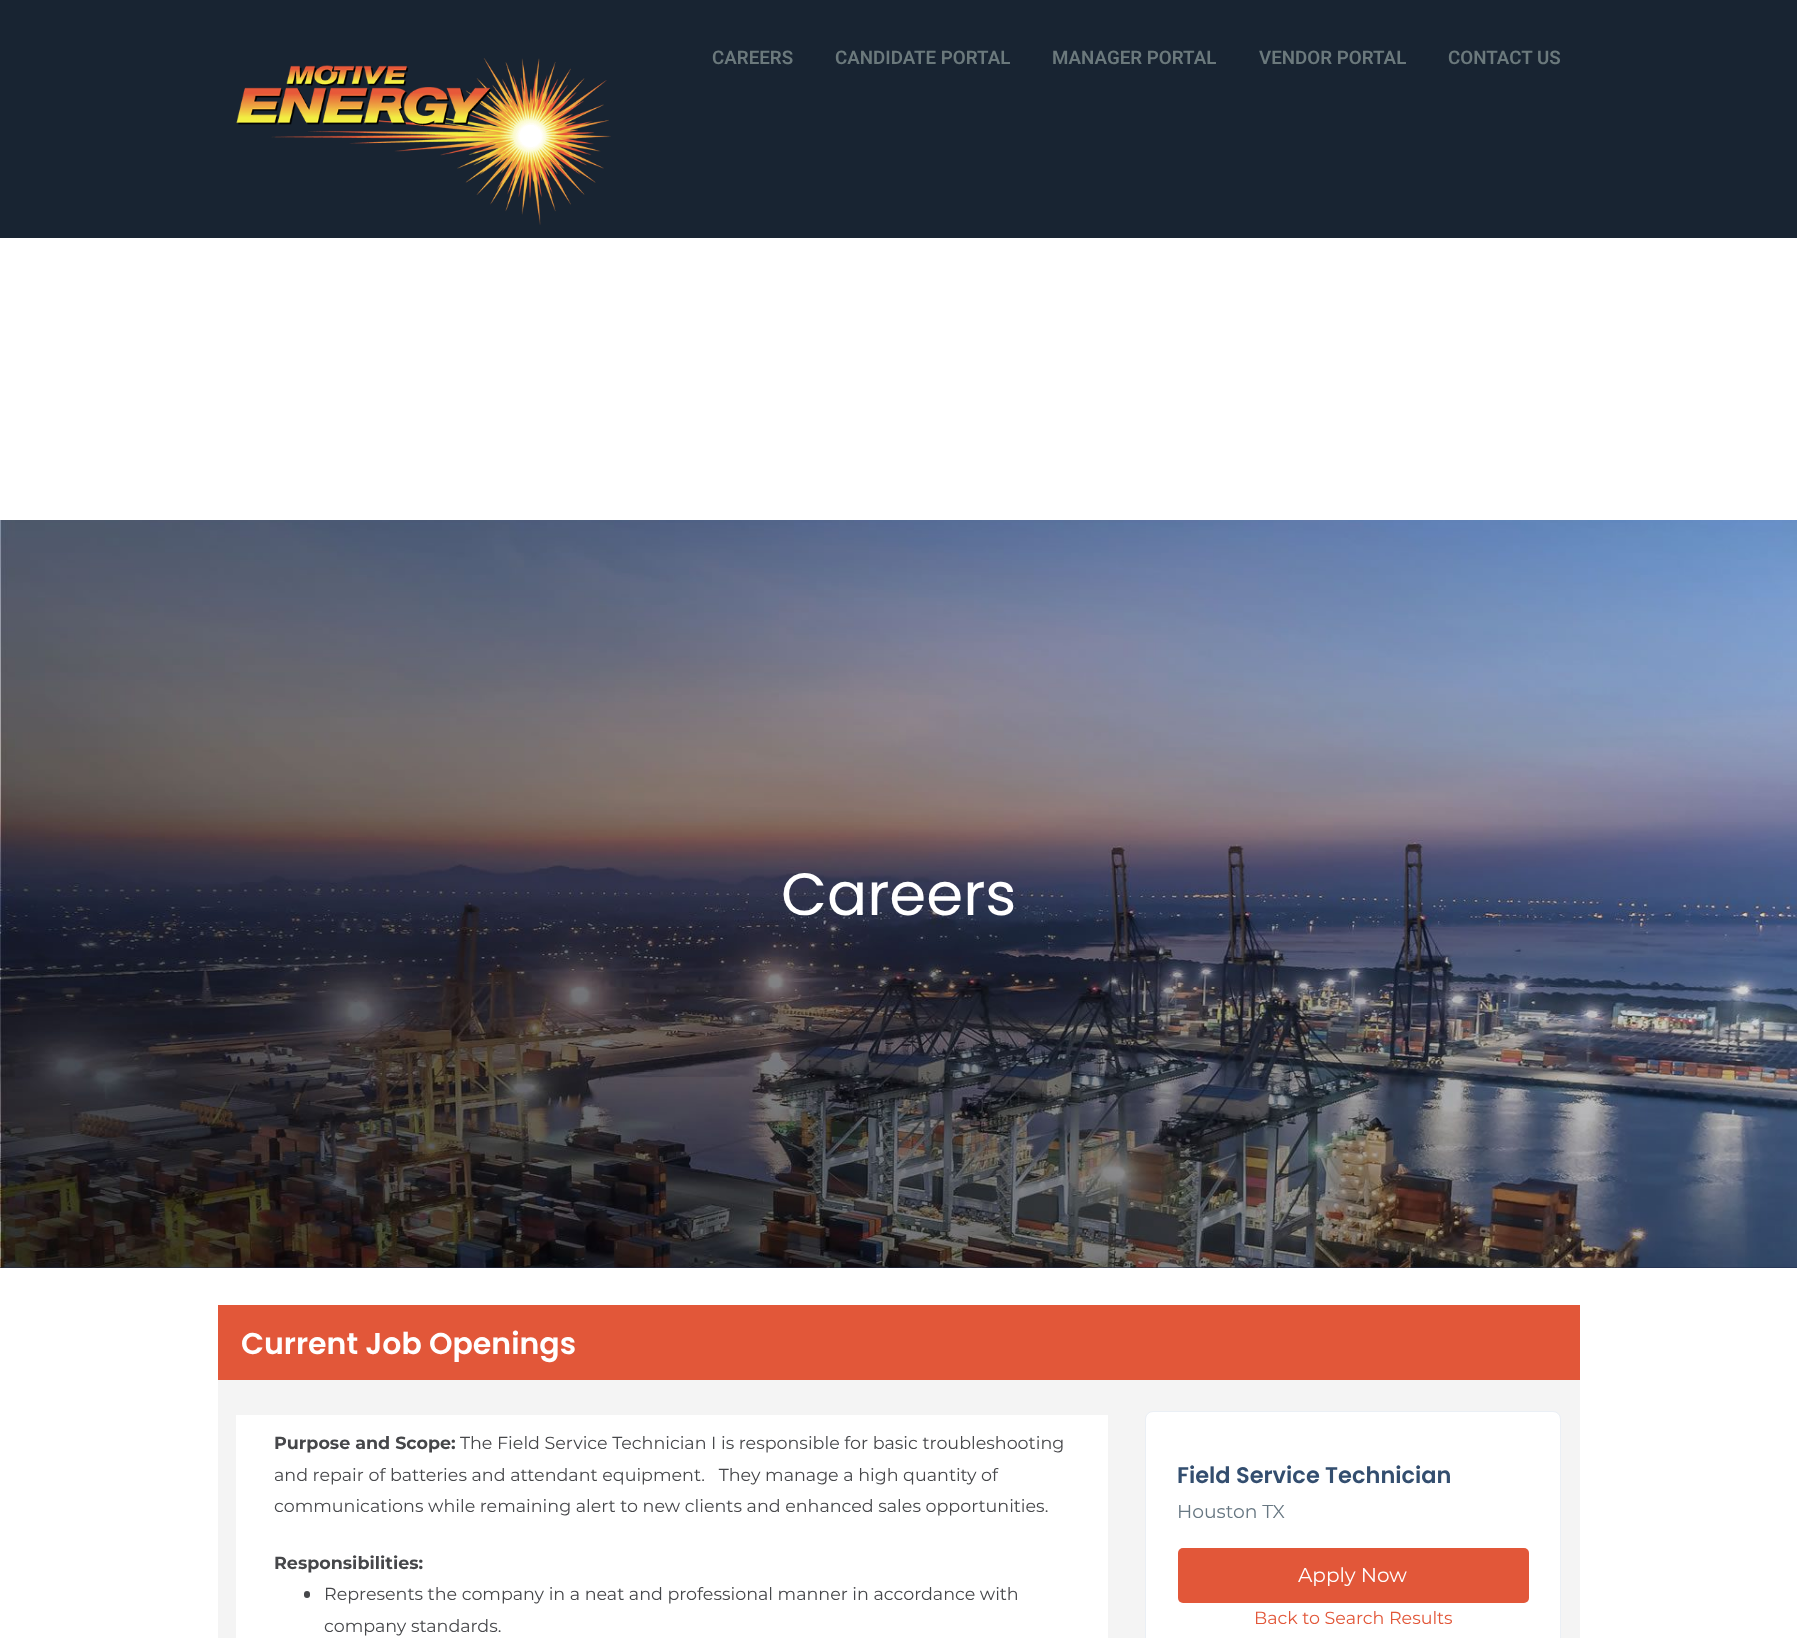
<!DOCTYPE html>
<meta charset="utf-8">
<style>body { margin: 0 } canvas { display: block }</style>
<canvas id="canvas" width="1797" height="1638"></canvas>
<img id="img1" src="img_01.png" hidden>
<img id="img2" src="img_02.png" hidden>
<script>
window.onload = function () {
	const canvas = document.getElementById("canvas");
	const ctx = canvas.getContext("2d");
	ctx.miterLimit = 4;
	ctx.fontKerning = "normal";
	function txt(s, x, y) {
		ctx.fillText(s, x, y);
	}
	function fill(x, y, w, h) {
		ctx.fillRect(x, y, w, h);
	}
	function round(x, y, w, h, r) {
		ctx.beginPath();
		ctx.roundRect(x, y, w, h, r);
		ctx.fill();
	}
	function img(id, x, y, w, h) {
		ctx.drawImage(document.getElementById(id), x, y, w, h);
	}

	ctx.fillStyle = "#FFFFFF";
	fill(0, 0, 1797, 1638);
	ctx.fillStyle = "#182432";
	fill(0, 0, 1797, 238);
	img("img1", 236, 58, 375, 167);
	ctx.fillStyle = "#212B4C";
	fill(0, 1267, 1797, 1);
	img("img2", 0, 520, 1797, 748);
	ctx.fillStyle = "#F4F4F4";
	fill(218, 1380, 1362, 258);
	ctx.fillStyle = "#E25739";
	fill(218, 1305, 1362, 75);
	ctx.fillStyle = "#FFFFFF";
	fill(236, 1415, 872, 223);
	ctx.fillStyle = "#46474A";
	round(304, 1591, 6, 7, 3);
	ctx.fillStyle = "#FFFFFF";
	ctx.beginPath();
	ctx.roundRect(1145.5, 1411.5, 415, 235, 7.5);
	ctx.fill();
	ctx.strokeStyle = "#EAEFF5";
	ctx.stroke();
	ctx.fillStyle = "#E25739";
	round(1178, 1548, 351, 55, 5);
	ctx.font = "600 18.75px Roboto";
	ctx.fillStyle = "#6B797C";
	txt("CAREERS", 712, 64);
	txt("CANDIDATE PORTAL", 835, 64);
	txt("MANAGER PORTAL", 1052, 64);
	txt("VENDOR PORTAL", 1259, 64);
	txt("CONTACT US", 1448, 64);
	ctx.font = "59.5px Poppins";
	ctx.fillStyle = "#FFFFFF";
	txt("Careers", 781, 915);
	ctx.font = "600 30px Poppins";
	txt("Current Job Openings", 241, 1354);
	ctx.font = "bold 17.5px Montserrat";
	ctx.fillStyle = "#46474A";
	txt("Purpose and Scope:", 274, 1449);
	ctx.font = "17.5px Montserrat";
	txt("The Field Service Technician I is responsible for basic troubleshooting", 460, 1449);
	txt("and repair of batteries and attendant equipment.   They manage a high quantity of", 274, 1481);
	txt("communications while remaining alert to new clients and enhanced sales opportunities.", 274, 1512);
	ctx.font = "bold 17.5px Montserrat";
	txt("Responsibilities:", 274, 1569);
	ctx.font = "17.5px Montserrat";
	txt("Represents the company in a neat and professional manner in accordance with", 324, 1600);
	txt("company standards.", 324, 1632);
	ctx.font = "600 22.5px Poppins";
	ctx.fillStyle = "#334E6F";
	txt("Field Service Technician", 1177, 1483);
	ctx.font = "18.75px Montserrat";
	ctx.fillStyle = "#677782";
	txt("Houston TX", 1177, 1518);
	ctx.font = "20px Montserrat";
	ctx.fillStyle = "#FFFFFF";
	txt("Apply Now", 1298, 1582);
	ctx.font = "17.5px Montserrat";
	ctx.fillStyle = "#E25739";
	txt("Back to Search Results", 1254, 1624);
};
</script>
